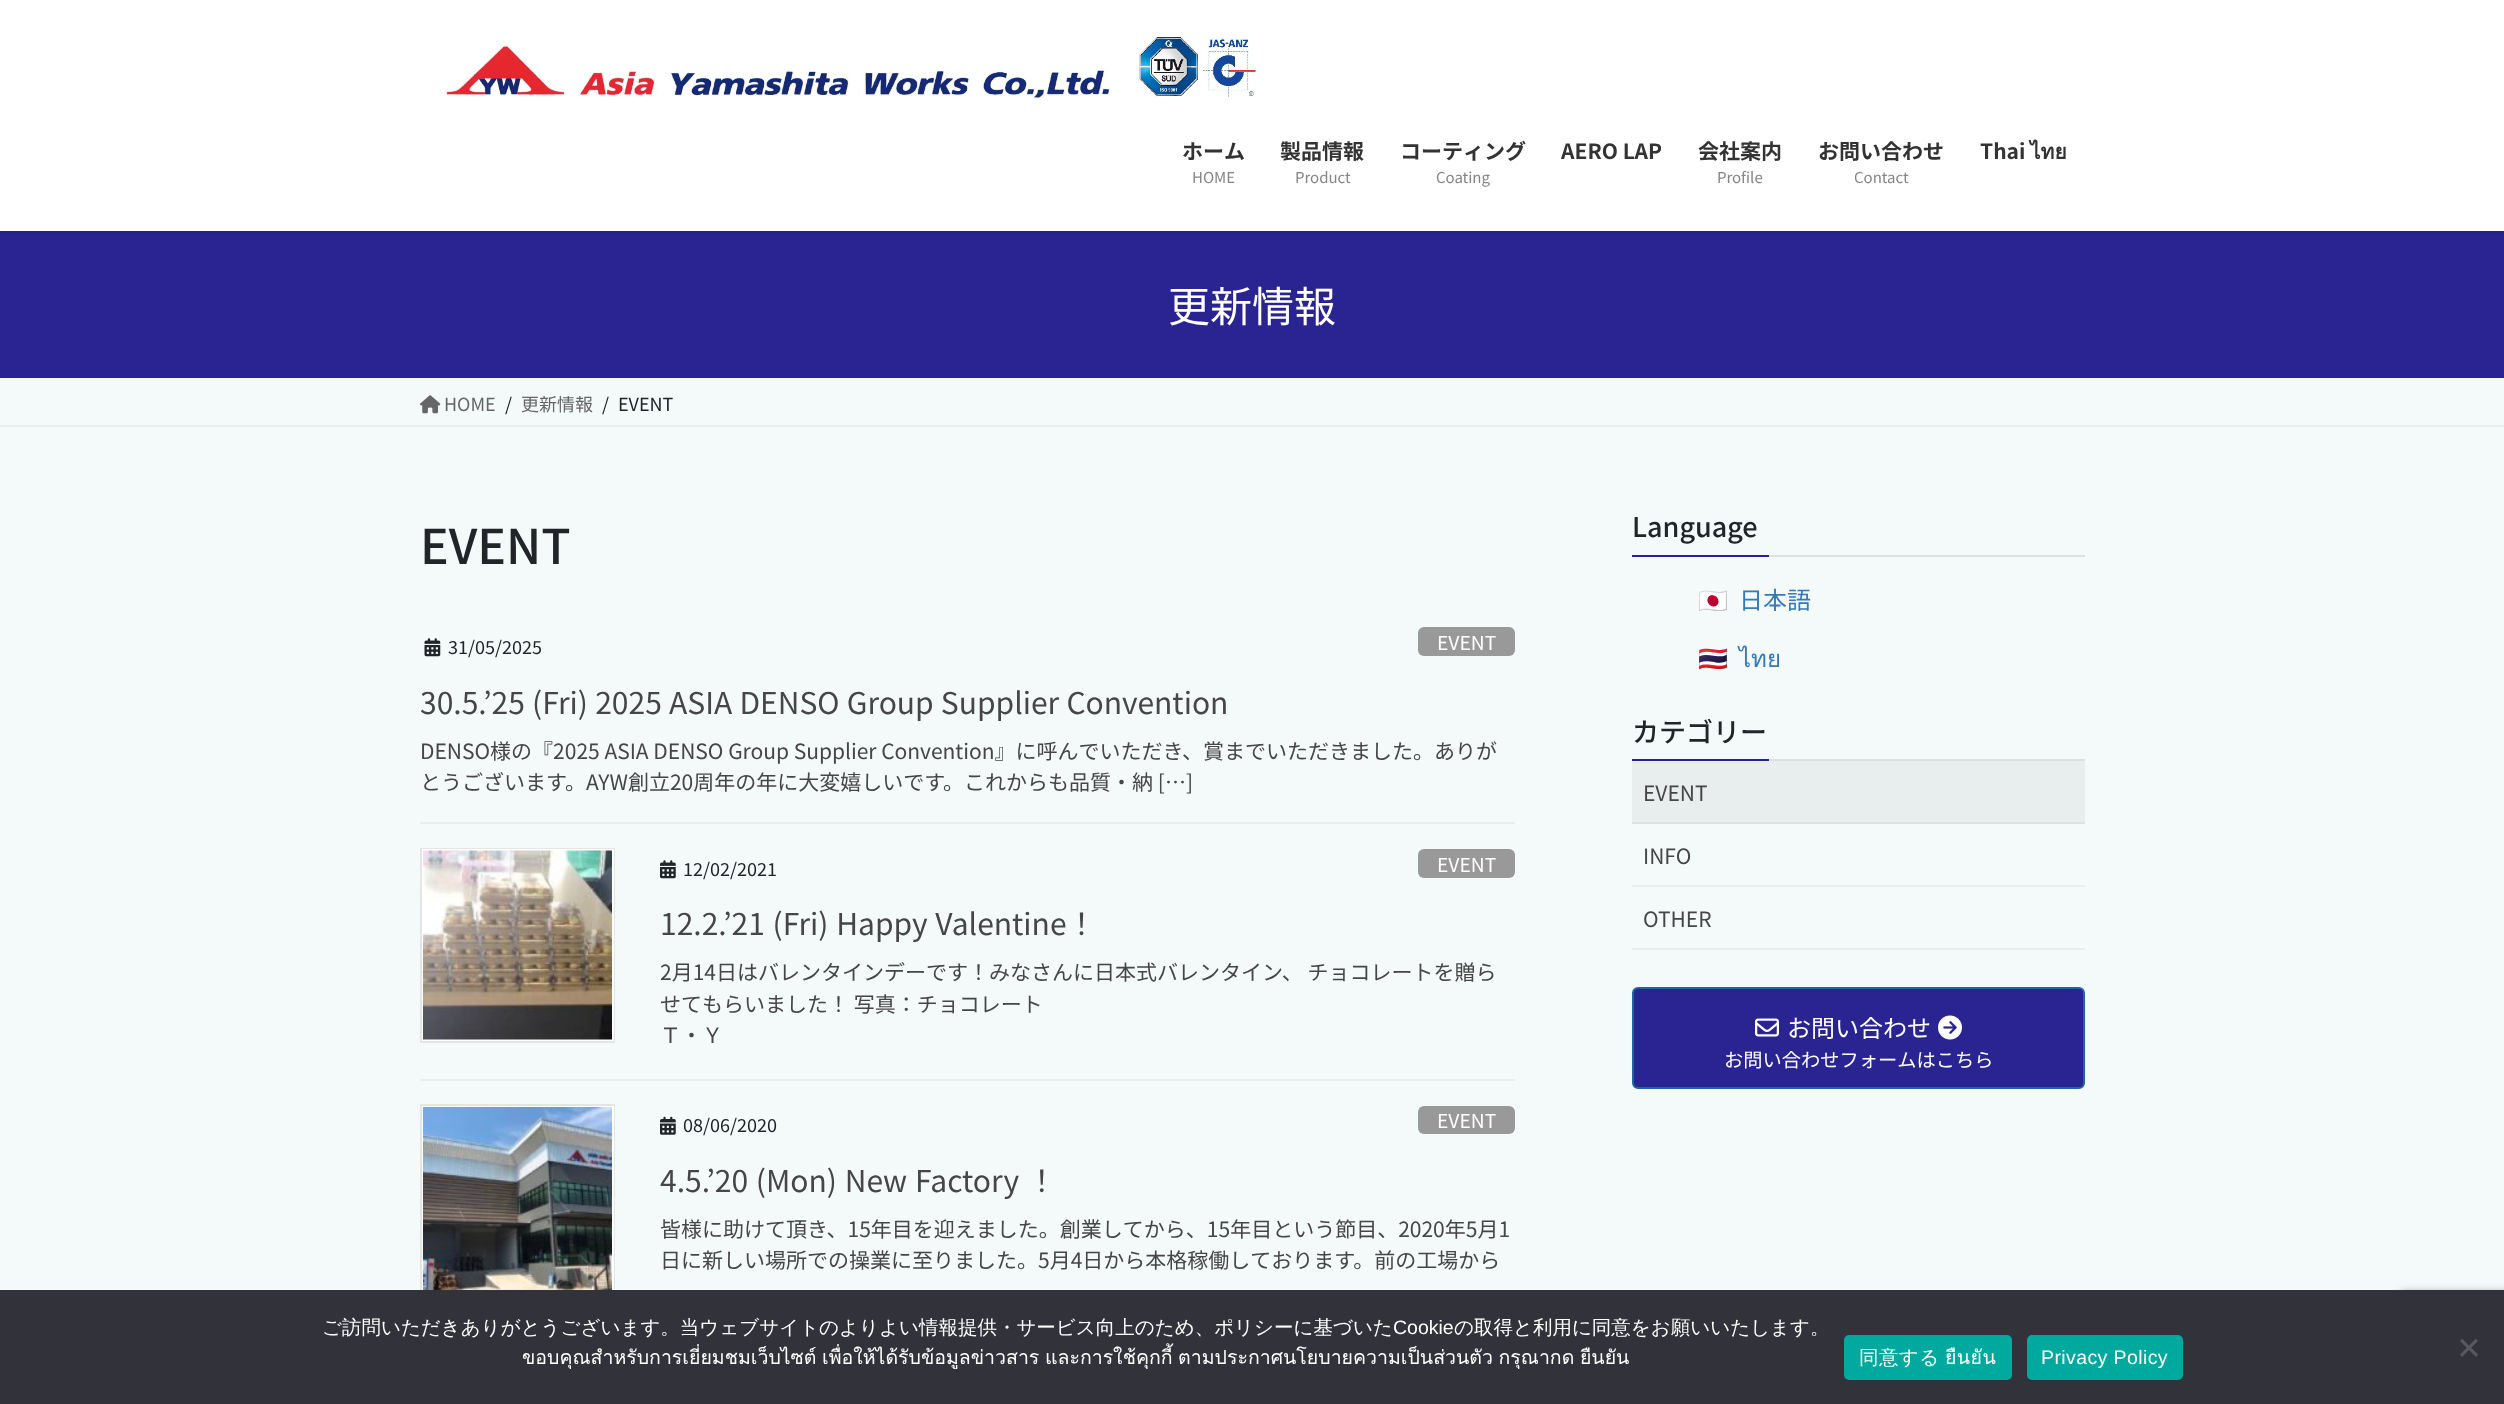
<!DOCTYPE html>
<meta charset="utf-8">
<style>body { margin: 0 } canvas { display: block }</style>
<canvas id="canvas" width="2504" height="1404"></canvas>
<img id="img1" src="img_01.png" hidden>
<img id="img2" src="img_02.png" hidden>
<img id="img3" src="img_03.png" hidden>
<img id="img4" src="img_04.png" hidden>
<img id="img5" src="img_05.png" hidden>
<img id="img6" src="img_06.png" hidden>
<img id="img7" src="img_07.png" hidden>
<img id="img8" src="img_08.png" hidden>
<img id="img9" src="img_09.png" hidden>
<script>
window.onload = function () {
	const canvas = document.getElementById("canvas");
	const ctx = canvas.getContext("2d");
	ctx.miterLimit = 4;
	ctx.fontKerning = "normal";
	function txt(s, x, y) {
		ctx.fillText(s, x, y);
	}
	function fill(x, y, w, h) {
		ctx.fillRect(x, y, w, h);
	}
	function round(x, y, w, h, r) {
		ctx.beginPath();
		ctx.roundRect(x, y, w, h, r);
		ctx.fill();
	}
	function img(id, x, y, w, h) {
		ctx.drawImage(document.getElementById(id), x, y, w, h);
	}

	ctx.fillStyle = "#F4F9F9";
	fill(0, 0, 2504, 1404);
	ctx.fillStyle = "#292491";
	fill(0, 231, 2504, 147);
	ctx.fillStyle = "rgba(0, 0, 0, 0.1)";
	ctx.filter = "blur(2px)";
	ctx.beginPath();
	ctx.rect(0, 2, 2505, 231);
	ctx.fill();
	ctx.filter = "none";
	ctx.fillStyle = "#FFFFFF";
	fill(0, 0, 2504, 231);
	img("img1", 443, 37, 813, 62);
	ctx.fillStyle = "#E8EDED";
	fill(0, 425, 2504, 2);
	img("img2", 420, 395, 21, 19);
	fill(420, 822, 1095, 2);
	img("img3", 424, 638, 17, 19);
	ctx.fillStyle = "#999999";
	round(1418, 627, 97, 29, 6);
	ctx.fillStyle = "#E8EDED";
	fill(420, 1079, 1095, 2);
	ctx.strokeStyle = "#E5E5E5";
	ctx.lineWidth = 2;
	ctx.strokeRect(421, 849, 193, 193);
	ctx.strokeStyle = "#FFFFFF";
	ctx.strokeRect(423, 850, 190, 190);
	img("img4", 423, 850, 189, 190);
	img("img5", 660, 860, 16, 19);
	ctx.fillStyle = "#999999";
	round(1418, 849, 97, 29, 6);
	ctx.strokeStyle = "#E5E5E5";
	ctx.strokeRect(421, 1105, 193, 193);
	ctx.strokeStyle = "#FFFFFF";
	ctx.strokeRect(423, 1107, 190, 190);
	img("img6", 423, 1107, 189, 183);
	img("img7", 660, 1116, 16, 19);
	round(1418, 1106, 97, 28, 6);
	ctx.fillStyle = "#DCE0E0";
	fill(1769, 555, 316, 2);
	ctx.fillStyle = "#292491";
	fill(1632, 555, 137, 2);
	ctx.fillStyle = "#DCE0E0";
	fill(1769, 759, 316, 2);
	ctx.fillStyle = "#292491";
	fill(1632, 759, 137, 2);
	ctx.fillStyle = "#E8EDED";
	fill(1632, 761, 453, 61);
	ctx.fillStyle = "#DCE1E1";
	fill(1632, 822, 453, 2);
	ctx.fillStyle = "#E8EDED";
	fill(1632, 885, 453, 2);
	fill(1632, 948, 453, 2);
	ctx.fillStyle = "#292491";
	ctx.beginPath();
	ctx.roundRect(1633, 988, 451, 100, 5);
	ctx.fill();
	ctx.strokeStyle = "#1F65A3";
	ctx.stroke();
	img("img8", 1755, 1018, 24, 19);
	img("img9", 1938, 1015, 24, 25);
	ctx.fillStyle = "#808080";
	ctx.filter = "blur(4px)";
	ctx.beginPath();
	ctx.roundRect(2400, 1293, 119, 90, 3);
	ctx.fill();
	ctx.filter = "none";
	ctx.fillStyle = "#32323A";
	fill(0, 1290, 2504, 114);
	ctx.fillStyle = "#00A99D";
	round(1844, 1335, 168, 45, 5);
	round(2027, 1335, 156, 45, 5);
	ctx.fillStyle = "#59595D";
	ctx.beginPath();
	ctx.moveTo(2476, 1338.5);
	ctx.lineTo(2478, 1341);
	ctx.lineTo(2462, 1357);
	ctx.lineTo(2460, 1354.5);
	ctx.closePath();
	ctx.fill();
	ctx.beginPath();
	ctx.moveTo(2460, 1341);
	ctx.lineTo(2462, 1338.5);
	ctx.lineTo(2478, 1354.5);
	ctx.lineTo(2476, 1357);
	ctx.closePath();
	ctx.fill();
	ctx.font = "bold 21px Noto Sans JP";
	ctx.fillStyle = "#333333";
	txt("ホーム", 1182, 159);
	ctx.font = "15px Noto Sans JP";
	ctx.fillStyle = "#858585";
	txt("HOME", 1192, 183);
	ctx.font = "bold 21px Noto Sans JP";
	ctx.fillStyle = "#333333";
	txt("製品情報", 1280, 159);
	ctx.font = "15px Noto Sans JP";
	ctx.fillStyle = "#858585";
	txt("Product", 1295, 183);
	ctx.font = "bold 21px Noto Sans JP";
	ctx.fillStyle = "#333333";
	txt("コーティング", 1400, 159);
	ctx.font = "15px Noto Sans JP";
	ctx.fillStyle = "#858585";
	txt("Coating", 1436, 183);
	ctx.font = "bold 21px Noto Sans JP";
	ctx.fillStyle = "#333333";
	txt("AERO LAP", 1561, 159);
	txt("会社案内", 1698, 159);
	ctx.font = "15px Noto Sans JP";
	ctx.fillStyle = "#858585";
	txt("Profile", 1717, 183);
	ctx.font = "bold 21px Noto Sans JP";
	ctx.fillStyle = "#333333";
	txt("お問い合わせ", 1818, 159);
	ctx.font = "15px Noto Sans JP";
	ctx.fillStyle = "#858585";
	txt("Contact", 1854, 183);
	ctx.font = "bold 21px Noto Sans JP";
	ctx.fillStyle = "#333333";
	txt("Thai", 1980, 159);
	ctx.font = "bold 21px Loma";
	txt("ไทย", 2030, 159);
	ctx.font = "42px Noto Sans JP";
	ctx.fillStyle = "#FFFFFF";
	txt("更新情報", 1168, 322);
	ctx.font = "18px Noto Sans JP";
	ctx.fillStyle = "#666666";
	txt("HOME", 444, 411);
	ctx.fillStyle = "#212529";
	txt("/", 505, 411);
	ctx.fillStyle = "#666666";
	txt("更新情報", 521, 411);
	ctx.fillStyle = "#212529";
	txt("/", 602, 411);
	txt("EVENT", 618, 411);
	ctx.font = "500 48px Noto Sans JP";
	txt("EVENT", 420, 564);
	ctx.font = "18px Noto Sans JP";
	txt("31/05/2025", 448, 654);
	ctx.font = "19.25px Noto Sans JP";
	ctx.fillStyle = "#FFFFFF";
	txt("EVENT", 1437, 650);
	ctx.wordSpacing = "0.5px";
	ctx.font = "30px Noto Sans JP";
	ctx.fillStyle = "#464646";
	txt("30.5.’25 (Fri) 2025 ASIA DENSO Group Supplier Convention", 420, 714);
	ctx.wordSpacing = "0px";
	ctx.font = "21px Noto Sans JP";
	txt("DENSO様の『2025 ASIA DENSO Group Supplier Convention』に呼んでいただき、賞までいただきました。ありが", 420, 759);
	txt("とうございます。AYW創立20周年の年に大変嬉しいです。これからも品質・納 […]", 420, 790);
	ctx.font = "18px Noto Sans JP";
	ctx.fillStyle = "#212529";
	txt("12/02/2021", 683, 876);
	ctx.font = "19.25px Noto Sans JP";
	ctx.fillStyle = "#FFFFFF";
	txt("EVENT", 1437, 872);
	ctx.wordSpacing = "1px";
	ctx.font = "30px Noto Sans JP";
	ctx.fillStyle = "#464646";
	txt("12.2.’21 (Fri) Happy Valentine！", 660, 935);
	ctx.wordSpacing = "0px";
	ctx.font = "21px Noto Sans JP";
	txt("2月14日はバレンタインデーです！みなさんに日本式バレンタイン、 チョコレートを贈ら", 660, 980);
	txt("せてもらいました！ 写真：チョコレート", 660, 1012);
	txt("Ｔ・Ｙ", 660, 1043);
	ctx.font = "18px Noto Sans JP";
	ctx.fillStyle = "#212529";
	txt("08/06/2020", 683, 1132);
	ctx.font = "19.25px Noto Sans JP";
	ctx.fillStyle = "#FFFFFF";
	txt("EVENT", 1437, 1128);
	ctx.wordSpacing = "1px";
	ctx.font = "30px Noto Sans JP";
	ctx.fillStyle = "#464646";
	txt("4.5.’20 (Mon) New Factory ！", 660, 1192);
	ctx.wordSpacing = "0px";
	ctx.font = "21px Noto Sans JP";
	txt("皆様に助けて頂き、15年目を迎えました。創業してから、15年目という節目、2020年5月1", 660, 1237);
	txt("日に新しい場所での操業に至りました。5月4日から本格稼働しております。前の工場から", 660, 1268);
	ctx.font = "500 27px Noto Sans JP";
	ctx.fillStyle = "#212529";
	txt("Language", 1632, 537);
	ctx.font = "24px Noto Color Emoji";
	txt("🇯🇵", 1698, 609);
	ctx.font = "24px Noto Sans JP";
	ctx.fillStyle = "#337AB7";
	txt("日本語", 1739, 609);
	ctx.font = "24px Noto Color Emoji";
	ctx.fillStyle = "#212529";
	txt("🇹🇭", 1698, 667);
	ctx.font = "24px Loma";
	ctx.fillStyle = "#337AB7";
	txt("ไทย", 1739, 667);
	ctx.font = "500 27px Noto Sans JP";
	ctx.fillStyle = "#212529";
	txt("カテゴリー", 1632, 742);
	ctx.font = "21px Noto Sans JP";
	ctx.fillStyle = "#464646";
	txt("EVENT", 1643, 801);
	txt("INFO", 1643, 864);
	txt("OTHER", 1643, 927);
	ctx.font = "24px Noto Sans JP";
	ctx.fillStyle = "#FFFFFF";
	txt("お問い合わせ", 1787, 1037);
	ctx.font = "19.25px Noto Sans JP";
	txt("お問い合わせフォームはこちら", 1724, 1067);
	ctx.font = "500 19.5px WenQuanYi Zen Hei";
	txt("ご訪問いただきありがとうございます。当ウェブサイトのよりよい情報提供・サービス向上のため、ポリシーに基づいた", 322, 1334);
	ctx.font = "19.5px Liberation Sans";
	txt("Cookie", 1393, 1334);
	ctx.font = "500 19.5px WenQuanYi Zen Hei";
	txt("の取得と利用に同意をお願いいたします。", 1454, 1334);
	ctx.font = "19.5px Loma";
	txt("ขอบคุณสำหรับการเยี่ยมชมเว็บไซต์", 522, 1364);
	ctx.wordSpacing = "-1px";
	txt("เพื่อให้ได้รับข้อมูลข่าวสาร และการใช้คุกกี้ ตามประกาศนโยบายความเป็นส่วนตัว กรุณากด ยืนยัน", 822, 1364);
	ctx.letterSpacing = "0.4px";
	ctx.wordSpacing = "0px";
	ctx.font = "500 19.5px WenQuanYi Zen Hei";
	txt("同意する", 1859, 1364);
	ctx.font = "19.5px Loma";
	txt("ยืนยัน", 1945, 1364);
	ctx.font = "19.5px Liberation Sans";
	txt("Privacy Policy", 2041, 1364);
};
</script>
